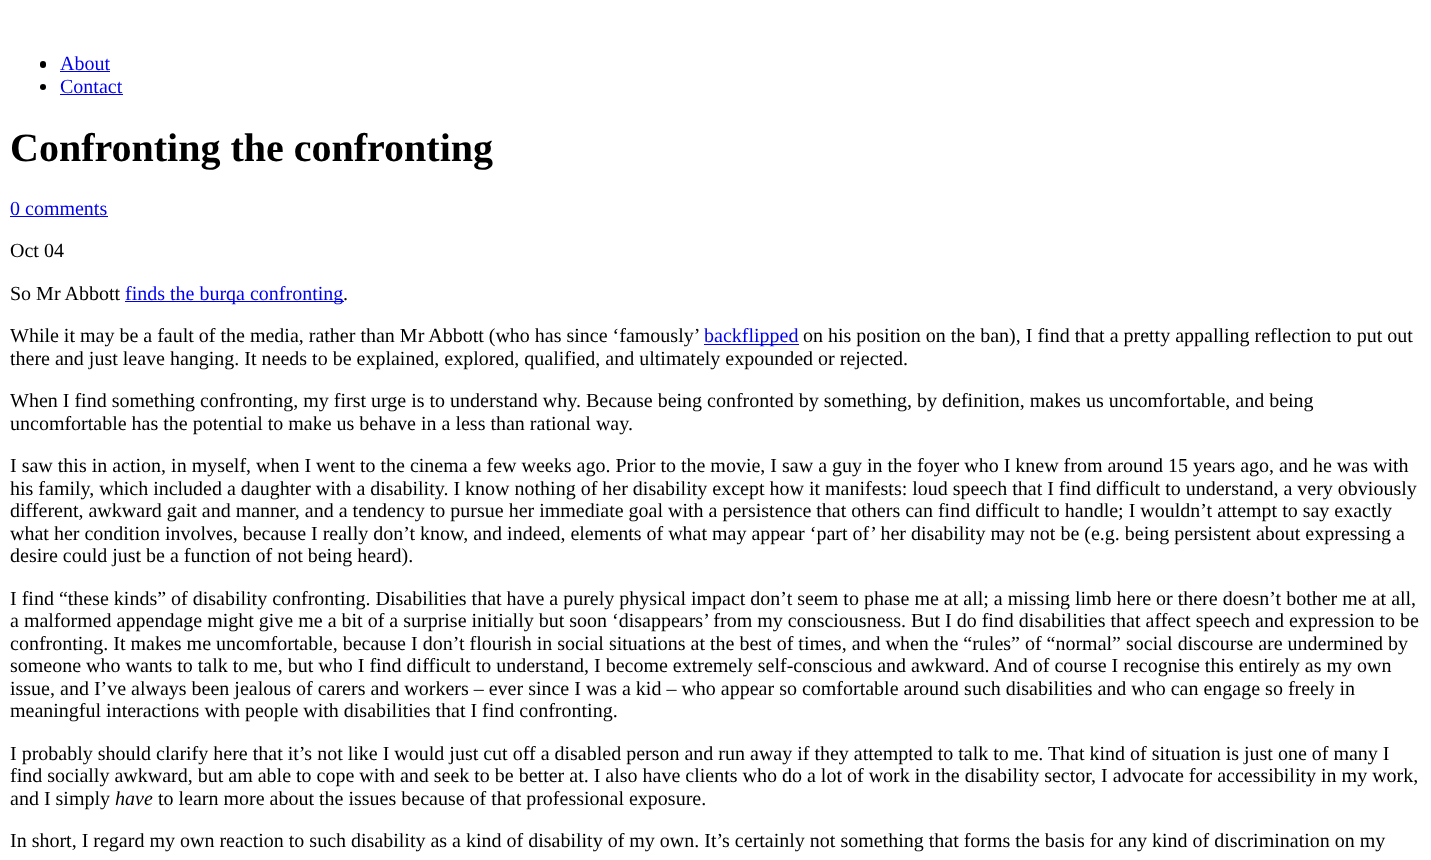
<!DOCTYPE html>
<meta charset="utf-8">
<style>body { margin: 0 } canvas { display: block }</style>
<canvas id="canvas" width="1431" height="860"></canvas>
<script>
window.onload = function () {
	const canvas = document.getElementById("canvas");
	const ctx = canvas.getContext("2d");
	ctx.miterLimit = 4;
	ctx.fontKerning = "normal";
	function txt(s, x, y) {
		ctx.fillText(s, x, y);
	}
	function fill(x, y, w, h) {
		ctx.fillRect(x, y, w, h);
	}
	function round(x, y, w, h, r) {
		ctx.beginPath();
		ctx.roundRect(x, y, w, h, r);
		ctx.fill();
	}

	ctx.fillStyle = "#FFFFFF";
	fill(0, 0, 1431, 860);
	ctx.fillStyle = "#000000";
	round(40, 61, 6, 7, 3);
	ctx.fillStyle = "#0000EE";
	fill(60, 71, 50, 1);
	ctx.fillStyle = "#000000";
	ctx.beginPath();
	ctx.arc(43, 87, 3, 0, Math.PI * 2);
	ctx.fill();
	ctx.fillStyle = "#0000EE";
	fill(60, 94, 63, 1);
	fill(10, 216, 98, 1);
	fill(125, 301, 219, 1);
	fill(704, 344, 95, 1);
	ctx.font = "20px Liberation Serif";
	txt("About", 60, 70);
	txt("Contact", 60, 93);
	ctx.font = "bold 40px Liberation Serif";
	ctx.fillStyle = "#000000";
	txt("Confronting the confronting", 10, 161);
	ctx.font = "20px Liberation Serif";
	ctx.fillStyle = "#0000EE";
	txt("0 comments", 10, 215);
	ctx.fillStyle = "#000000";
	txt("Oct 04", 10, 257);
	txt("So Mr Abbott", 10, 300);
	ctx.fillStyle = "#0000EE";
	txt("finds the burqa confronting", 125, 300);
	ctx.fillStyle = "#000000";
	txt(".", 343, 300);
	txt("While it may be a fault of the media, rather than Mr Abbott (who has since ‘famously’", 10, 342);
	ctx.fillStyle = "#0000EE";
	txt("backflipped", 704, 342);
	ctx.fillStyle = "#000000";
	txt("on his position on the ban), I find that a pretty appalling reflection to put out", 803, 342);
	txt("there and just leave hanging. It needs to be explained, explored, qualified, and ultimately expounded or rejected.", 10, 365);
	txt("When I find something confronting, my first urge is to understand why. Because being confronted by something, by definition, makes us uncomfortable, and being", 10, 407);
	txt("uncomfortable has the potential to make us behave in a less than rational way.", 10, 430);
	txt("I saw this in action, in myself, when I went to the cinema a few weeks ago. Prior to the movie, I saw a guy in the foyer who I knew from around 15 years ago, and he was with", 10, 472);
	txt("his family, which included a daughter with a disability. I know nothing of her disability except how it manifests: loud speech that I find difficult to understand, a very obviously", 10, 495);
	txt("different, awkward gait and manner, and a tendency to pursue her immediate goal with a persistence that others can find difficult to handle; I wouldn’t attempt to say exactly", 10, 517);
	txt("what her condition involves, because I really don’t know, and indeed, elements of what may appear ‘part of’ her disability may not be (e.g. being persistent about expressing a", 10, 540);
	txt("desire could just be a function of not being heard).", 10, 562);
	txt("I find “these kinds” of disability confronting. Disabilities that have a purely physical impact don’t seem to phase me at all; a missing limb here or there doesn’t bother me at all,", 10, 605);
	txt("a malformed appendage might give me a bit of a surprise initially but soon ‘disappears’ from my consciousness. But I do find disabilities that affect speech and expression to be", 10, 627);
	txt("confronting. It makes me uncomfortable, because I don’t flourish in social situations at the best of times, and when the “rules” of “normal” social discourse are undermined by", 10, 650);
	txt("someone who wants to talk to me, but who I find difficult to understand, I become extremely self-conscious and awkward. And of course I recognise this entirely as my own", 10, 672);
	txt("issue, and I’ve always been jealous of carers and workers – ever since I was a kid – who appear so comfortable around such disabilities and who can engage so freely in", 10, 695);
	txt("meaningful interactions with people with disabilities that I find confronting.", 10, 717);
	txt("I probably should clarify here that it’s not like I would just cut off a disabled person and run away if they attempted to talk to me. That kind of situation is just one of many I", 10, 760);
	txt("find socially awkward, but am able to cope with and seek to be better at. I also have clients who do a lot of work in the disability sector, I advocate for accessibility in my work,", 10, 782);
	txt("and I simply", 10, 805);
	ctx.font = "italic 20px Liberation Serif";
	txt("have", 115, 805);
	ctx.font = "20px Liberation Serif";
	txt("to learn more about the issues because of that professional exposure.", 158, 805);
	txt("In short, I regard my own reaction to such disability as a kind of disability of my own. It’s certainly not something that forms the basis for any kind of discrimination on my", 10, 847);
};
</script>
